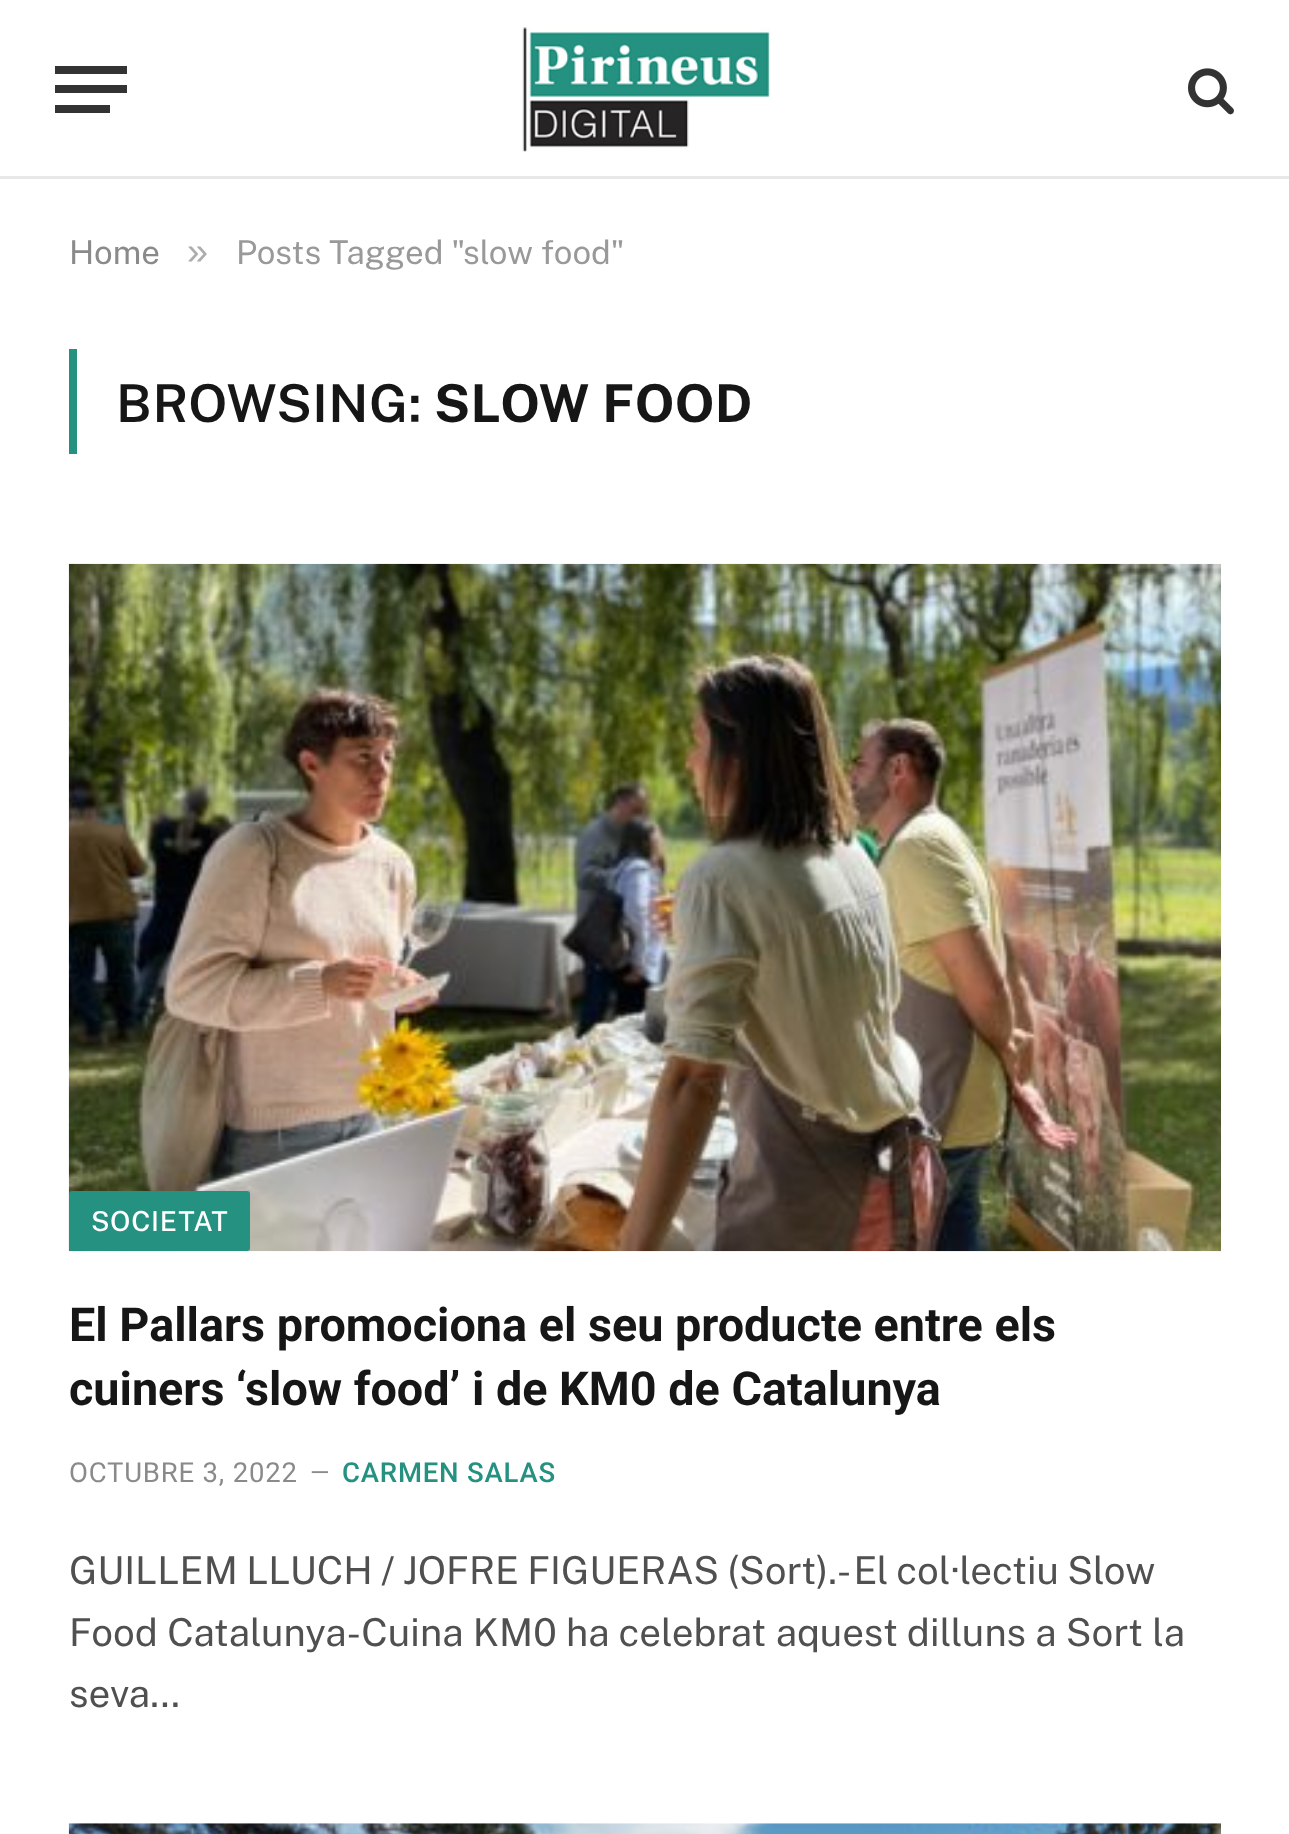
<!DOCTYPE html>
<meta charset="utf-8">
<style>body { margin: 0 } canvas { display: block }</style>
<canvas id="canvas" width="1289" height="1834"></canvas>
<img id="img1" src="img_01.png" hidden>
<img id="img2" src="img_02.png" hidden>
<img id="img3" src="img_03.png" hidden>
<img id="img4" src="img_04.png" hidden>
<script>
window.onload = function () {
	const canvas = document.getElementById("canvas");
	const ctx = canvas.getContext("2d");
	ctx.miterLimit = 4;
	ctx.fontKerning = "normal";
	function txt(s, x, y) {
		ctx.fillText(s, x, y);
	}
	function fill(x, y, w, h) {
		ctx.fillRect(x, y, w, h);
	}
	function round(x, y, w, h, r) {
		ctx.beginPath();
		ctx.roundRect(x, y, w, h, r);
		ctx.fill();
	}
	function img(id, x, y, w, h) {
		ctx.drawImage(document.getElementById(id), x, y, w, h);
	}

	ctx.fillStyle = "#FFFFFF";
	fill(0, 0, 1289, 1834);
	ctx.fillStyle = "#E8E8E8";
	fill(0, 176, 1289, 3);
	ctx.fillStyle = "#333333";
	fill(55, 105, 55, 8);
	fill(55, 66, 72, 8);
	fill(55, 85, 72, 8);
	img("img1", 522, 27, 248, 125);
	img("img2", 1188, 68, 46, 47);
	ctx.fillStyle = "#259181";
	fill(69, 349, 8, 105);
	img("img3", 68, 563, 1153, 689);
	round(69, 1191, 181, 60, 3);
	img("img4", 68, 1823, 1153, 11);
	ctx.font = "33px Public Sans";
	ctx.fillStyle = "#8A8A8A";
	txt("Home", 69, 264);
	ctx.font = "38px Liberation Sans";
	ctx.fillStyle = "#ADADAD";
	txt("»", 187, 264);
	ctx.font = "33px Public Sans";
	ctx.fillStyle = "#999999";
	txt("Posts Tagged \"slow food\"", 236, 264);
	ctx.letterSpacing = "0.5px";
	ctx.font = "600 52.25px Public Sans";
	ctx.fillStyle = "#161616";
	txt("BROWSING:", 116, 422);
	ctx.font = "bold 52.25px Public Sans";
	txt("SLOW FOOD", 434, 422);
	ctx.letterSpacing = "0.8px";
	ctx.font = "500 27.5px Public Sans";
	ctx.fillStyle = "#FFFFFF";
	txt("SOCIETAT", 91, 1231);
	ctx.letterSpacing = "0px";
	ctx.font = "bold 46.75px Roboto";
	ctx.fillStyle = "#161616";
	txt("El Pallars promociona el seu producte entre els", 69, 1341);
	txt("cuiners ‘slow food’ i de KM0 de Catalunya", 69, 1405);
	ctx.letterSpacing = "0.8px";
	ctx.font = "27.5px Roboto";
	ctx.fillStyle = "#8A8A8A";
	txt("OCTUBRE 3, 2022", 69, 1482);
	ctx.letterSpacing = "1px";
	ctx.font = "25px Roboto";
	txt("—", 310, 1481);
	ctx.letterSpacing = "0.8px";
	ctx.font = "500 27.5px Roboto";
	ctx.fillStyle = "#259181";
	txt("CARMEN SALAS", 342, 1482);
	ctx.letterSpacing = "0px";
	ctx.wordSpacing = "-1px";
	ctx.font = "38.5px Public Sans";
	ctx.fillStyle = "#505050";
	txt("GUILLEM LLUCH / JOFRE FIGUERAS (Sort).- El col·lectiu Slow", 69, 1584);
	ctx.wordSpacing = "0px";
	txt("Food Catalunya-Cuina KM0 ha celebrat aquest dilluns a Sort la", 69, 1646);
	txt("seva…", 69, 1707);
};
</script>
